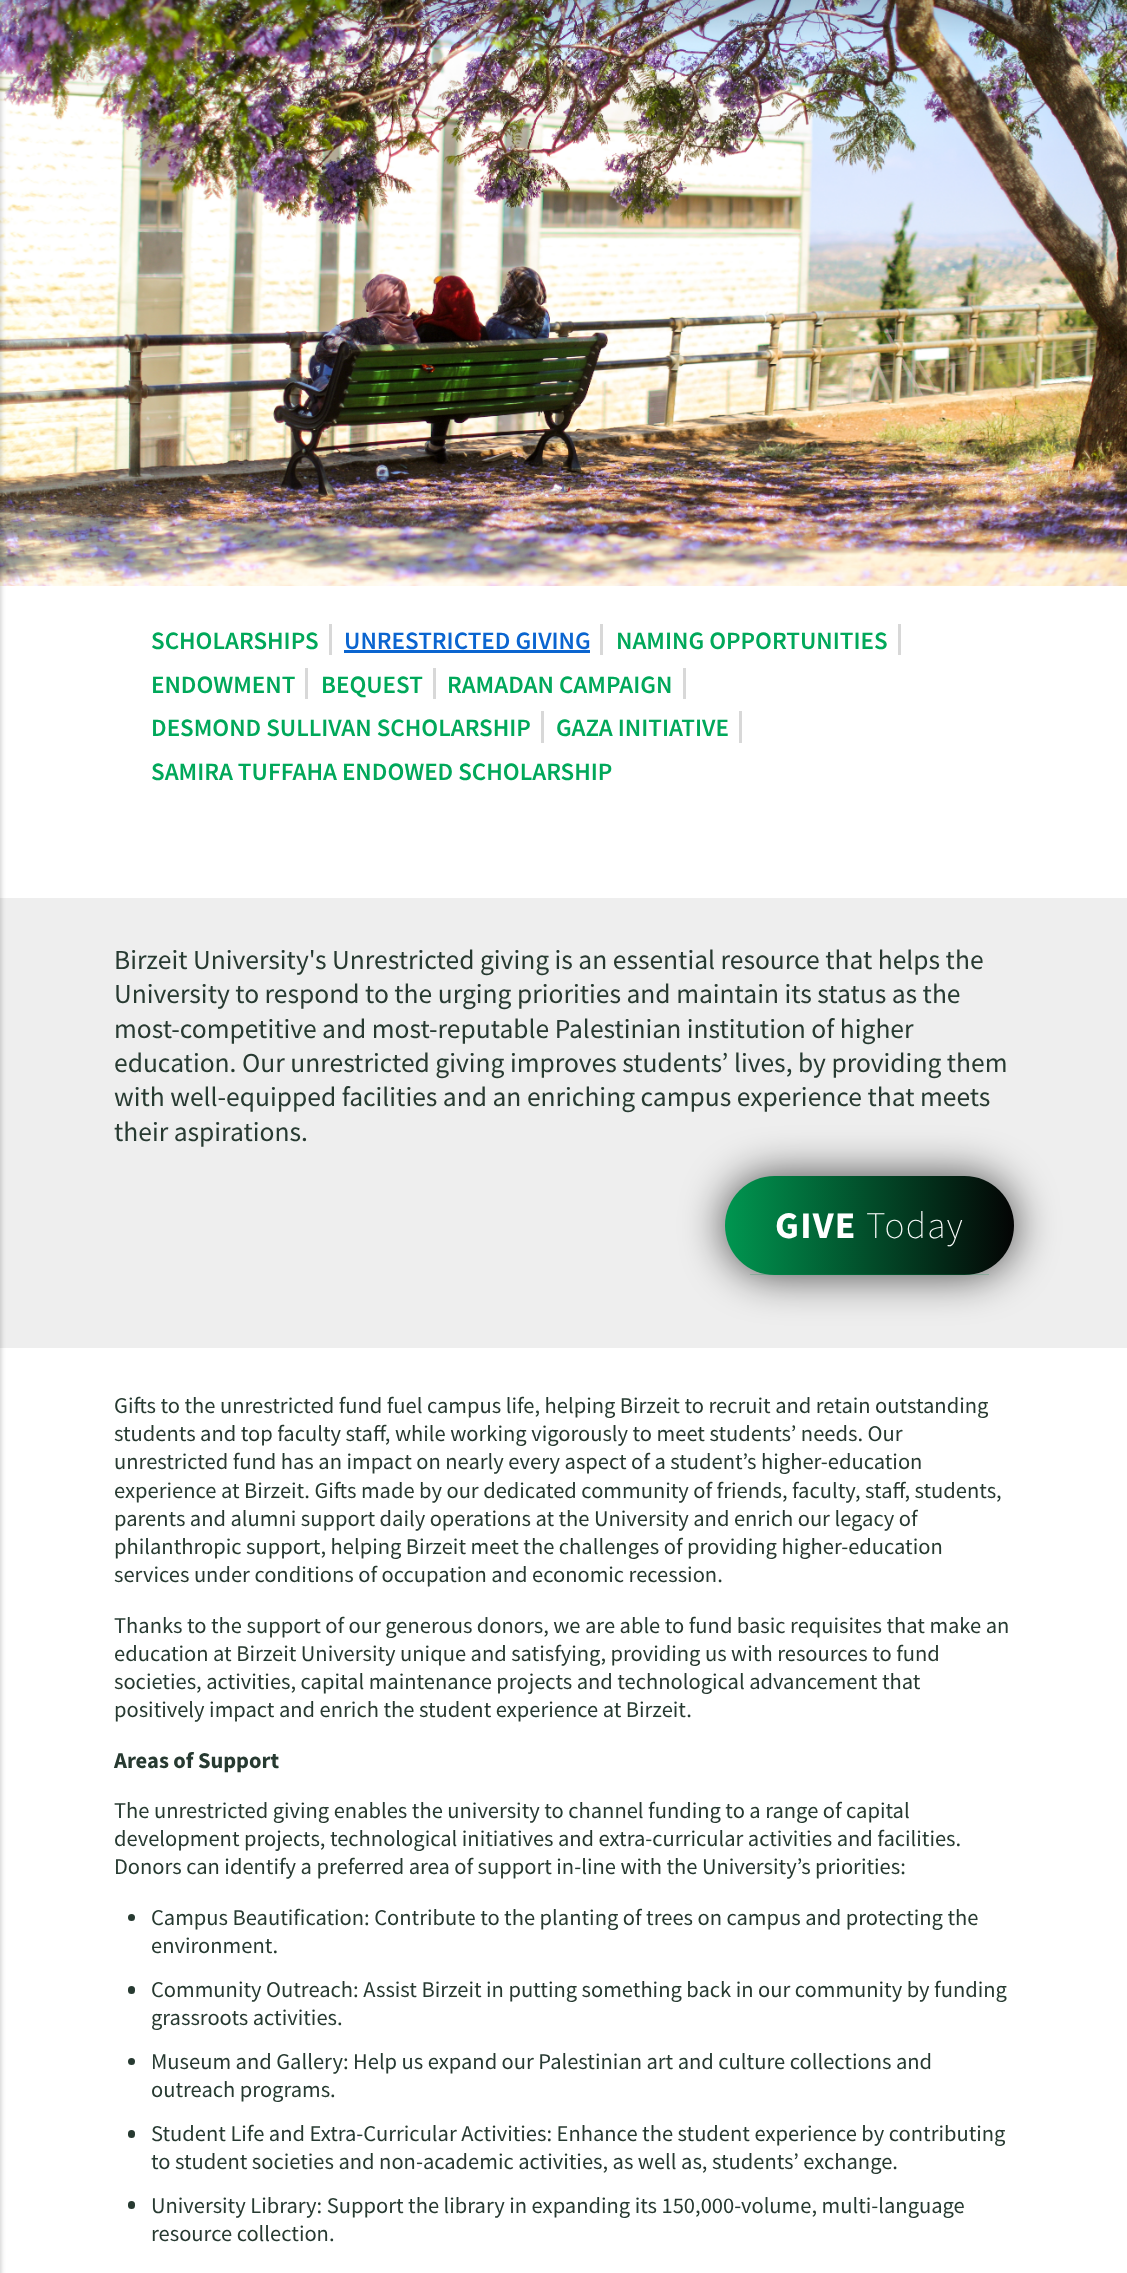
<!DOCTYPE html>
<meta charset="utf-8">
<style>body { margin: 0 } canvas { display: block }</style>
<canvas id="canvas" width="1127" height="2273"></canvas>
<img id="img1" src="img_01.png" hidden>
<script>
window.onload = function () {
	const canvas = document.getElementById("canvas");
	const ctx = canvas.getContext("2d");
	ctx.miterLimit = 4;
	ctx.fontKerning = "normal";
	function txt(s, x, y) {
		ctx.fillText(s, x, y);
	}
	function fill(x, y, w, h) {
		ctx.fillRect(x, y, w, h);
	}
	function round(x, y, w, h, r) {
		ctx.beginPath();
		ctx.roundRect(x, y, w, h, r);
		ctx.fill();
	}
	function img(id, x, y, w, h) {
		ctx.drawImage(document.getElementById(id), x, y, w, h);
	}
	let gradient;

	ctx.fillStyle = "#FFFFFF";
	fill(0, 0, 1127, 2273);
	img("img1", 0, 0, 1127, 586);
	ctx.fillStyle = "#EEEEEE";
	fill(0, 898, 1127, 450);
	ctx.fillStyle = "rgba(0, 0, 0, 0.2)";
	ctx.filter = "blur(2.5px)";
	ctx.beginPath();
	ctx.rect(-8, 4, 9, 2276);
	ctx.fill();
	ctx.filter = "none";
	ctx.fillStyle = "#D8D8D8";
	fill(329, 624, 3, 31);
	ctx.fillStyle = "#0A65D0";
	fill(344, 650, 246, 3);
	ctx.fillStyle = "#D8D8D8";
	fill(600, 624, 3, 31);
	fill(898, 624, 3, 31);
	fill(305, 668, 3, 31);
	fill(433, 668, 3, 31);
	fill(683, 668, 3, 31);
	fill(541, 711, 3, 32);
	fill(739, 711, 3, 32);
	ctx.fillStyle = "rgba(0, 0, 0, 0.71)";
	ctx.filter = "blur(22px)";
	ctx.beginPath();
	ctx.roundRect(725, 1176, 289, 99, 49.5);
	ctx.fill();
	ctx.filter = "none";
	gradient = ctx.createLinearGradient(725, 1225, 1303, 1225);
	gradient.addColorStop(0, "#009650");
	gradient.addColorStop(0.5, "#040404");
	gradient.addColorStop(1, "#009650");
	ctx.fillStyle = gradient;
	round(725, 1176, 289, 99, 49.5);
	ctx.fillStyle = "rgba(0, 150, 80, 0.24)";
	fill(750, 1274, 239, 1);
	ctx.fillStyle = "#273A31";
	ctx.beginPath();
	ctx.arc(131.5, 1917.5, 3.5, 0, Math.PI * 2);
	ctx.fill();
	round(128, 1986, 7, 8, 3.5);
	ctx.beginPath();
	ctx.arc(131.5, 2061.5, 3.5, 0, Math.PI * 2);
	ctx.fill();
	round(128, 2130, 7, 8, 3.5);
	round(128, 2201, 7, 8, 3.5);
	ctx.font = "600 25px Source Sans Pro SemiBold";
	ctx.fillStyle = "#00A85A";
	txt("SCHOLARSHIPS", 151, 649);
	ctx.fillStyle = "#0A65D0";
	txt("UNRESTRICTED GIVING", 344, 649);
	ctx.fillStyle = "#00A85A";
	txt("NAMING OPPORTUNITIES", 616, 649);
	txt("ENDOWMENT", 151, 693);
	txt("BEQUEST", 321, 693);
	txt("RAMADAN CAMPAIGN", 447, 693);
	txt("DESMOND SULLIVAN SCHOLARSHIP", 151, 736);
	txt("GAZA INITIATIVE", 556, 736);
	txt("SAMIRA TUFFAHA ENDOWED SCHOLARSHIP", 151, 780);
	ctx.font = "27.5px Source Sans Pro";
	ctx.fillStyle = "#273A31";
	txt("Birzeit University's Unrestricted giving is an essential resource that helps the", 114, 969);
	txt("University to respond to the urging priorities and maintain its status as the", 114, 1003);
	txt("most-competitive and most-reputable Palestinian institution of higher", 114, 1038);
	txt("education. Our unrestricted giving improves students’ lives, by providing them", 114, 1072);
	txt("with well-equipped facilities and an enriching campus experience that meets", 114, 1106);
	txt("their aspirations.", 114, 1141);
	ctx.letterSpacing = "1.25px";
	ctx.font = "bold 37.5px Source Sans Pro";
	ctx.fillStyle = "#FFFFFF";
	txt("GIVE", 775, 1238);
	ctx.font = "200 37.5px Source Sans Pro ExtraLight";
	txt("Today", 866, 1238);
	ctx.letterSpacing = "0px";
	ctx.font = "22.5px Source Sans Pro";
	ctx.fillStyle = "#273A31";
	txt("Gifts to the unrestricted fund fuel campus life, helping Birzeit to recruit and retain outstanding", 114, 1413);
	txt("students and top faculty staff, while working vigorously to meet students’ needs. Our", 114, 1441);
	txt("unrestricted fund has an impact on nearly every aspect of a student’s higher-education", 114, 1469);
	txt("experience at Birzeit. Gifts made by our dedicated community of friends, faculty, staff, students,", 114, 1498);
	txt("parents and alumni support daily operations at the University and enrich our legacy of", 114, 1526);
	txt("philanthropic support, helping Birzeit meet the challenges of providing higher-education", 114, 1554);
	txt("services under conditions of occupation and economic recession.", 114, 1582);
	txt("Thanks to the support of our generous donors, we are able to fund basic requisites that make an", 114, 1633);
	txt("education at Birzeit University unique and satisfying, providing us with resources to fund", 114, 1661);
	txt("societies, activities, capital maintenance projects and technological advancement that", 114, 1689);
	txt("positively impact and enrich the student experience at Birzeit.", 114, 1717);
	ctx.font = "bold 22.5px Source Sans Pro";
	txt("Areas of Support", 114, 1768);
	ctx.font = "22.5px Source Sans Pro";
	txt("The unrestricted giving enables the university to channel funding to a range of capital", 114, 1818);
	txt("development projects, technological initiatives and extra-curricular activities and facilities.", 114, 1846);
	txt("Donors can identify a preferred area of support in-line with the University’s priorities:", 114, 1874);
	txt("Campus Beautification: Contribute to the planting of trees on campus and protecting the", 151, 1925);
	txt("environment.", 151, 1953);
	txt("Community Outreach: Assist Birzeit in putting something back in our community by funding", 151, 1997);
	txt("grassroots activities.", 151, 2025);
	txt("Museum and Gallery: Help us expand our Palestinian art and culture collections and", 151, 2069);
	txt("outreach programs.", 151, 2097);
	txt("Student Life and Extra-Curricular Activities: Enhance the student experience by contributing", 151, 2141);
	txt("to student societies and non-academic activities, as well as, students’ exchange.", 151, 2169);
	txt("University Library: Support the library in expanding its 150,000-volume, multi-language", 151, 2213);
	txt("resource collection.", 151, 2241);
};
</script>
